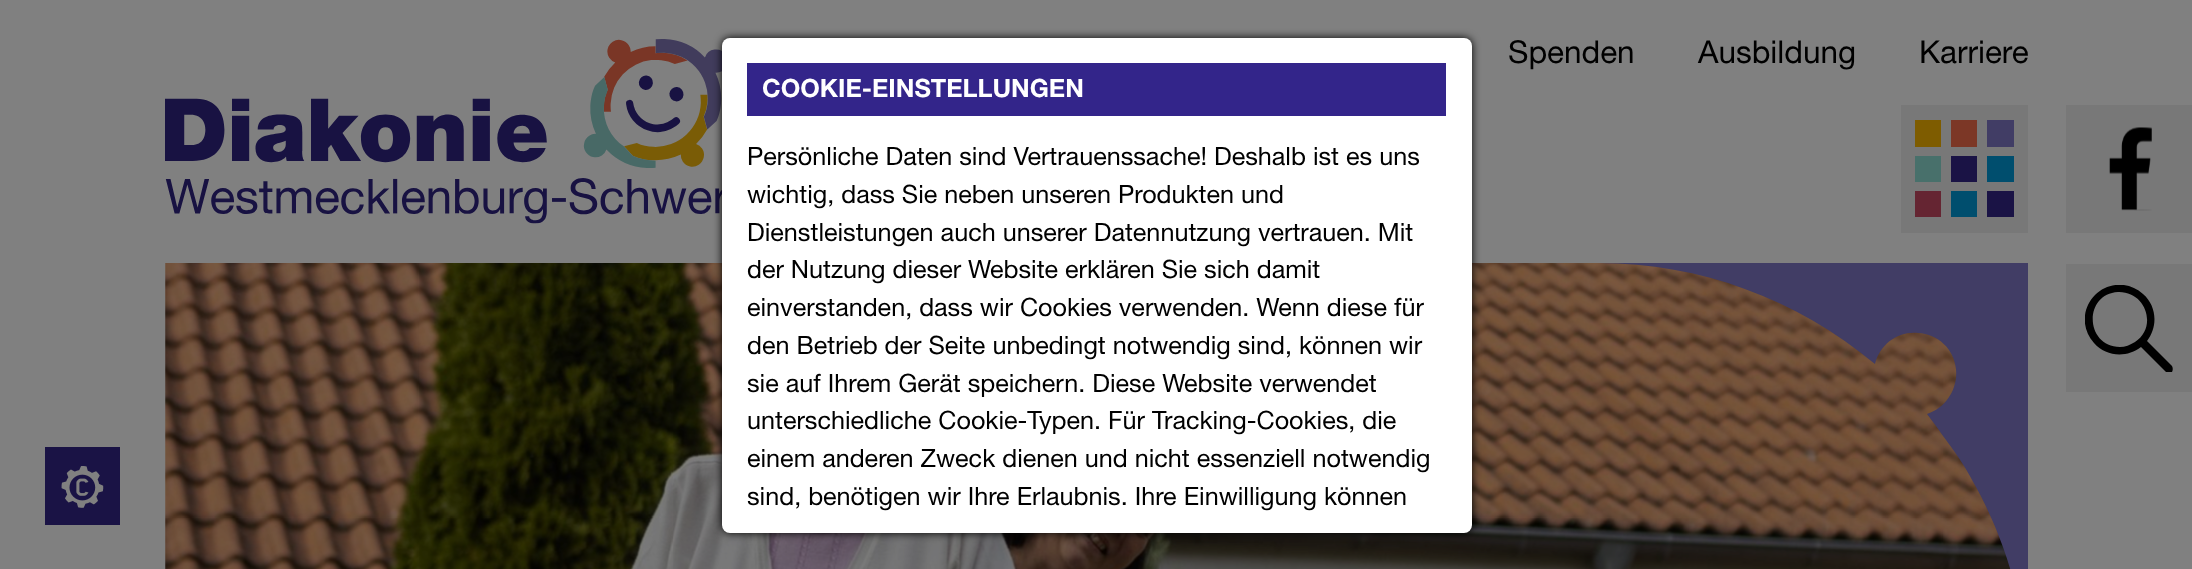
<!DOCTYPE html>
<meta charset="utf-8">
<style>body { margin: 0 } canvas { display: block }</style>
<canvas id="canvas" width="2192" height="569"></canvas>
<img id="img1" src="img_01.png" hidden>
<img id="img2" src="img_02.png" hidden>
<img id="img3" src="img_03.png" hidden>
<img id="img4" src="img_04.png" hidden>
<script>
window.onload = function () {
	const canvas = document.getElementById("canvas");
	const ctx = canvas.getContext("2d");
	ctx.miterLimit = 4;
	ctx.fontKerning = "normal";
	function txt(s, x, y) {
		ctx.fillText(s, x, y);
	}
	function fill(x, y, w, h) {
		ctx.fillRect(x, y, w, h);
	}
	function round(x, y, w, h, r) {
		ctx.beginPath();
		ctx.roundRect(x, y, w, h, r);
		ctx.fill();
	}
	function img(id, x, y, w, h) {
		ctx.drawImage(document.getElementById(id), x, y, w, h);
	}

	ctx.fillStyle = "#808080";
	fill(0, 0, 2192, 569);
	img("img1", 165, 39, 557, 185);
	ctx.fillStyle = "#787878";
	fill(1901, 105, 127, 128);
	ctx.fillStyle = "#7E5C00";
	fill(1915, 120, 26, 27);
	ctx.fillStyle = "#7C3726";
	fill(1951, 120, 26, 27);
	ctx.fillStyle = "#413D65";
	fill(1987, 120, 27, 27);
	ctx.fillStyle = "#48706B";
	fill(1915, 156, 26, 26);
	ctx.fillStyle = "#1A1345";
	fill(1951, 156, 26, 26);
	ctx.fillStyle = "#004E6E";
	fill(1987, 156, 27, 26);
	ctx.fillStyle = "#652532";
	fill(1915, 191, 26, 26);
	ctx.fillStyle = "#004E6E";
	fill(1951, 191, 26, 26);
	ctx.fillStyle = "#1A1345";
	fill(1987, 191, 27, 26);
	fill(45, 447, 75, 78);
	img("img2", 61, 466, 43, 42);
	img("img3", 165, 263, 1846, 306);
	ctx.save();
	ctx.beginPath();
	ctx.rect(1599, 263, 429, 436);
	ctx.clip();
	ctx.fillStyle = "#413D65";
	ctx.beginPath();
	ctx.moveTo(1599, 263);
	ctx.lineTo(2029, 263);
	ctx.lineTo(2029, 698);
	ctx.bezierCurveTo(2029, 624, 2011, 551, 1976, 487);
	ctx.bezierCurveTo(1960, 457, 1955, 453, 1936, 426);
	ctx.lineTo(1927, 414);
	ctx.bezierCurveTo(1946, 408, 1958, 389, 1956, 369);
	ctx.bezierCurveTo(1954, 349, 1938, 334, 1918, 333);
	ctx.bezierCurveTo(1898, 331, 1880, 344, 1875, 364);
	ctx.bezierCurveTo(1797, 299, 1700, 263, 1599, 263);
	ctx.fill();
	ctx.restore();
	ctx.fillStyle = "#787878";
	fill(2066, 105, 126, 128);
	img("img4", 2109, 127, 43, 84);
	fill(2066, 264, 126, 128);
	ctx.save();
	ctx.beginPath();
	ctx.rect(2085, 285, 89, 87);
	ctx.clip();
	ctx.fillStyle = "#000000";
	ctx.beginPath();
	ctx.moveTo(2172, 366);
	ctx.lineTo(2147, 341);
	ctx.bezierCurveTo(2158, 327, 2157, 306, 2143, 294);
	ctx.bezierCurveTo(2129, 281, 2108, 282, 2095, 295);
	ctx.bezierCurveTo(2082, 308, 2081, 329, 2094, 343);
	ctx.bezierCurveTo(2106, 357, 2127, 358, 2141, 347);
	ctx.lineTo(2166, 372);
	ctx.bezierCurveTo(2168, 373, 2170, 373, 2172, 372);
	ctx.bezierCurveTo(2173, 370, 2173, 368, 2172, 366);
	ctx.closePath();
	ctx.moveTo(2120, 347);
	ctx.bezierCurveTo(2085, 347, 2083, 294, 2118, 292);
	ctx.bezierCurveTo(2146, 291, 2158, 327, 2135, 342);
	ctx.bezierCurveTo(2130, 345, 2125, 347, 2120, 347);
	ctx.closePath();
	ctx.fill();
	ctx.restore();
	ctx.fillStyle = "#000000";
	ctx.filter = "blur(4px)";
	ctx.beginPath();
	ctx.roundRect(722, 38, 750, 495, 8);
	ctx.fill();
	ctx.filter = "none";
	ctx.fillStyle = "#FFFFFF";
	round(722, 38, 750, 495, 8);
	ctx.fillStyle = "#33258A";
	fill(747, 63, 699, 53);
	ctx.font = "31.5px Helvetica Neue";
	ctx.fillStyle = "#000000";
	txt("Spenden", 1508, 63);
	txt("Ausbildung", 1698, 63);
	txt("Karriere", 1919, 63);
	ctx.font = "bold 25.2px Helvetica Neue";
	ctx.fillStyle = "#FFFFFF";
	txt("COOKIE-EINSTELLUNGEN", 762, 97);
	ctx.font = "25.2px Helvetica Neue";
	ctx.fillStyle = "#000000";
	txt("Persönliche Daten sind Vertrauenssache! Deshalb ist es uns", 747, 165);
	txt("wichtig, dass Sie neben unseren Produkten und", 747, 203);
	txt("Dienstleistungen auch unserer Datennutzung vertrauen. Mit", 747, 241);
	txt("der Nutzung dieser Website erklären Sie sich damit", 747, 278);
	txt("einverstanden, dass wir Cookies verwenden. Wenn diese für", 747, 316);
	txt("den Betrieb der Seite unbedingt notwendig sind, können wir", 747, 354);
	txt("sie auf Ihrem Gerät speichern. Diese Website verwendet", 747, 392);
	txt("unterschiedliche Cookie-Typen. Für Tracking-Cookies, die", 747, 429);
	txt("einem anderen Zweck dienen und nicht essenziell notwendig", 747, 467);
	txt("sind, benötigen wir Ihre Erlaubnis. Ihre Einwilligung können", 747, 505);
};
</script>
